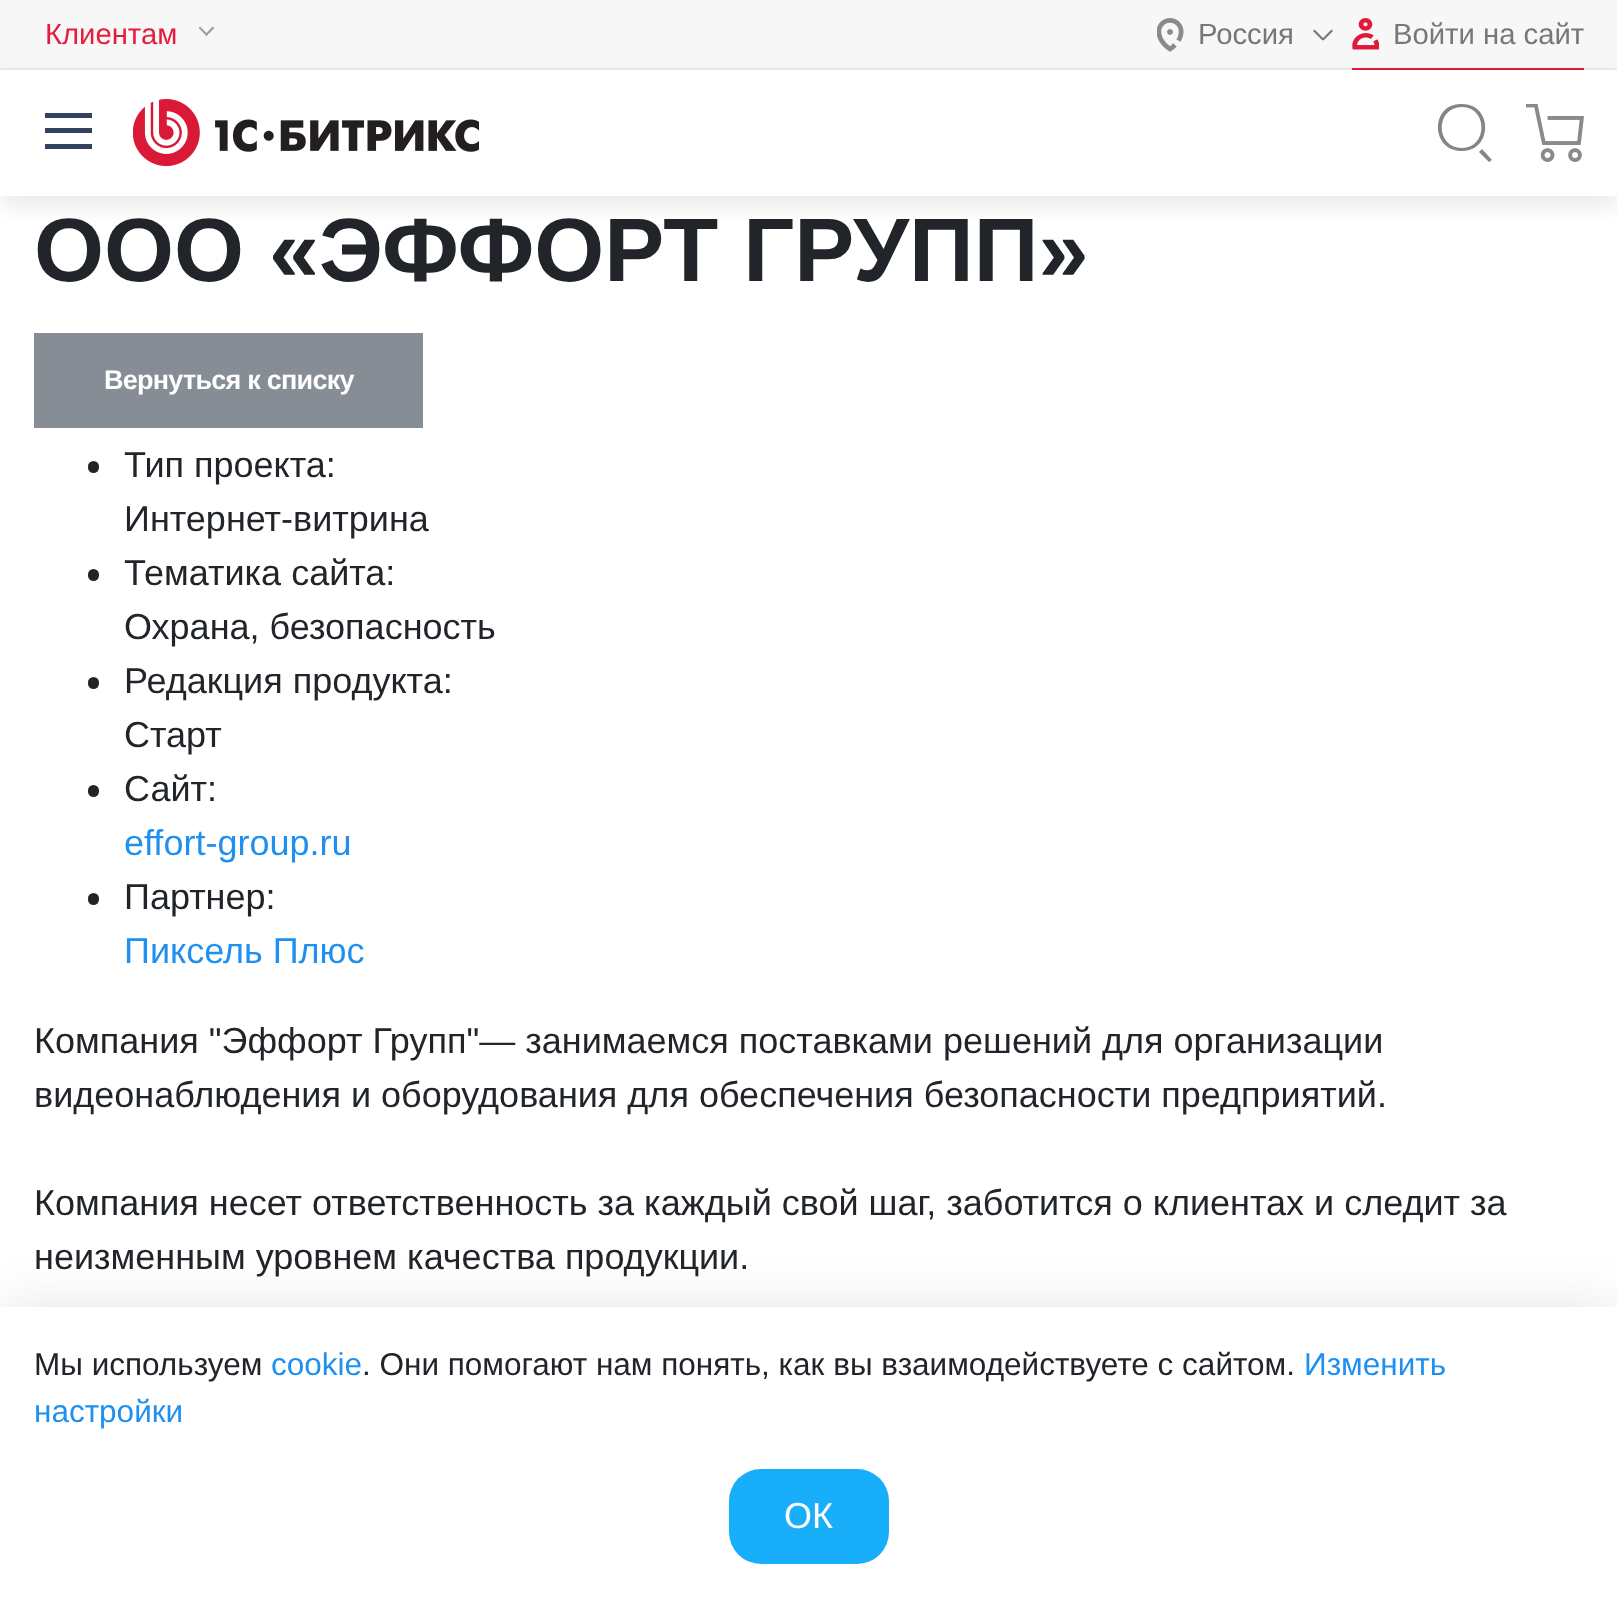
<!DOCTYPE html>
<meta charset="utf-8">
<style>body { margin: 0 } canvas { display: block }</style>
<canvas id="canvas" width="1617" height="1597"></canvas>
<img id="img1" src="img_01.png" hidden>
<img id="img2" src="img_02.png" hidden>
<img id="img3" src="img_03.png" hidden>
<img id="img4" src="img_04.png" hidden>
<script>
window.onload = function () {
	const canvas = document.getElementById("canvas");
	const ctx = canvas.getContext("2d");
	ctx.miterLimit = 4;
	ctx.fontKerning = "normal";
	function txt(s, x, y) {
		ctx.fillText(s, x, y);
	}
	function fill(x, y, w, h) {
		ctx.fillRect(x, y, w, h);
	}
	function round(x, y, w, h, r) {
		ctx.beginPath();
		ctx.roundRect(x, y, w, h, r);
		ctx.fill();
	}
	function img(id, x, y, w, h) {
		ctx.drawImage(document.getElementById(id), x, y, w, h);
	}

	ctx.fillStyle = "#FFFFFF";
	fill(0, 0, 1617, 1597);
	ctx.fillStyle = "#F7F7F7";
	fill(0, 0, 1617, 68);
	ctx.fillStyle = "#E9E9E9";
	fill(0, 68, 1617, 2);
	ctx.fillStyle = "#A1A1A1";
	ctx.beginPath();
	ctx.moveTo(205, 34.5);
	ctx.lineTo(212.5, 26.5);
	ctx.lineTo(214.5, 28);
	ctx.lineTo(206.5, 36);
	ctx.closePath();
	ctx.fill();
	ctx.beginPath();
	ctx.moveTo(198.5, 28);
	ctx.lineTo(200, 26.5);
	ctx.lineTo(208, 34.5);
	ctx.lineTo(206.5, 36);
	ctx.closePath();
	ctx.fill();
	img("img1", 1157, 18, 27, 34);
	ctx.fillStyle = "#777777";
	ctx.beginPath();
	ctx.moveTo(1314.5, 29.5);
	ctx.lineTo(1324, 39);
	ctx.lineTo(1322.5, 40.5);
	ctx.lineTo(1313, 31);
	ctx.closePath();
	ctx.fill();
	ctx.beginPath();
	ctx.moveTo(1322, 39);
	ctx.lineTo(1331.5, 29.5);
	ctx.lineTo(1333, 31);
	ctx.lineTo(1323.5, 40.5);
	ctx.closePath();
	ctx.fill();
	ctx.fillStyle = "#E01839";
	fill(1352, 68, 232, 2);
	img("img2", 1352, 18, 27, 32);
	ctx.fillStyle = "rgba(0, 0, 0, 0.08)";
	ctx.filter = "blur(11px)";
	ctx.beginPath();
	ctx.rect(0, 81, 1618, 126);
	ctx.fill();
	ctx.filter = "none";
	ctx.fillStyle = "#FFFFFF";
	fill(0, 70, 1617, 126);
	ctx.fillStyle = "#32425F";
	fill(45, 128, 47, 5);
	fill(45, 113, 47, 5);
	fill(45, 144, 47, 5);
	img("img3", 133, 99, 346, 68);
	ctx.fillStyle = "#858585";
	ctx.beginPath();
	ctx.moveTo(1462, 151);
	ctx.bezierCurveTo(1430, 151, 1430, 103, 1462, 104);
	ctx.bezierCurveTo(1493, 104, 1493, 151, 1462, 151);
	ctx.closePath();
	ctx.moveTo(1462, 107);
	ctx.bezierCurveTo(1435, 107, 1435, 148, 1462, 148);
	ctx.bezierCurveTo(1488, 148, 1488, 107, 1462, 107);
	ctx.closePath();
	ctx.moveTo(1492, 160);
	ctx.lineTo(1489, 162);
	ctx.lineTo(1479, 152);
	ctx.lineTo(1482, 149);
	ctx.closePath();
	ctx.fill("evenodd");
	img("img4", 1526, 104, 58, 58);
	ctx.fillStyle = "#868D95";
	fill(34, 333, 389, 95);
	ctx.fillStyle = "#212529";
	round(88, 461, 11, 12, 5.5);
	round(88, 569, 11, 12, 5.5);
	round(88, 677, 11, 12, 5.5);
	round(88, 785, 11, 12, 5.5);
	round(88, 893, 11, 12, 5.5);
	ctx.fillStyle = "rgba(0, 0, 0, 0.1)";
	ctx.filter = "blur(27px)";
	ctx.beginPath();
	ctx.rect(0, 1307, 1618, 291);
	ctx.fill();
	ctx.filter = "none";
	ctx.fillStyle = "#FFFFFF";
	fill(0, 1307, 1617, 290);
	ctx.fillStyle = "#19AEF9";
	round(729, 1469, 160, 95, 32);
	ctx.font = "29.25px Liberation Sans";
	ctx.fillStyle = "#E41C3D";
	txt("Клиентам", 45, 44);
	ctx.fillStyle = "#777777";
	txt("Россия", 1198, 44);
	txt("Войти на сайт", 1393, 44);
	ctx.font = "bold 90px Liberation Sans";
	ctx.fillStyle = "#212529";
	txt("ООО «ЭФФОРТ ГРУПП»", 34, 281);
	ctx.letterSpacing = "-0.75px";
	ctx.font = "bold 27px Liberation Sans";
	ctx.fillStyle = "#FFFFFF";
	txt("Вернуться к списку", 104, 389);
	ctx.letterSpacing = "0px";
	ctx.font = "36px Liberation Sans";
	ctx.fillStyle = "#212529";
	txt("Тип проекта:", 124, 477);
	txt("Интернет-витрина", 124, 531);
	txt("Тематика сайта:", 124, 585);
	txt("Охрана, безопасность", 124, 639);
	txt("Редакция продукта:", 124, 693);
	txt("Старт", 124, 747);
	txt("Сайт:", 124, 801);
	ctx.fillStyle = "#1F90EF";
	txt("effort-group.ru", 124, 855);
	ctx.fillStyle = "#212529";
	txt("Партнер:", 124, 909);
	ctx.fillStyle = "#1F90EF";
	txt("Пиксель Плюс", 124, 963);
	ctx.fillStyle = "#212529";
	txt("Компания \"Эффорт Групп\"— занимаемся поставками решений для организации", 34, 1053);
	txt("видеонаблюдения и оборудования для обеспечения безопасности предприятий.", 34, 1107);
	txt("Компания несет ответственность за каждый свой шаг, заботится о клиентах и следит за", 34, 1215);
	txt("неизменным уровнем качества продукции.", 34, 1269);
	ctx.font = "31.5px Liberation Sans";
	txt("Мы используем", 34, 1375);
	ctx.fillStyle = "#1F90EF";
	txt("cookie", 271, 1375);
	ctx.fillStyle = "#212529";
	txt(". Они помогают нам понять, как вы взаимодействуете с сайтом.", 362, 1375);
	ctx.fillStyle = "#1F90EF";
	txt("Изменить", 1304, 1375);
	txt("настройки", 34, 1422);
	ctx.font = "36px Liberation Sans";
	ctx.fillStyle = "#FFFFFF";
	txt("ОК", 784, 1528);
};
</script>
